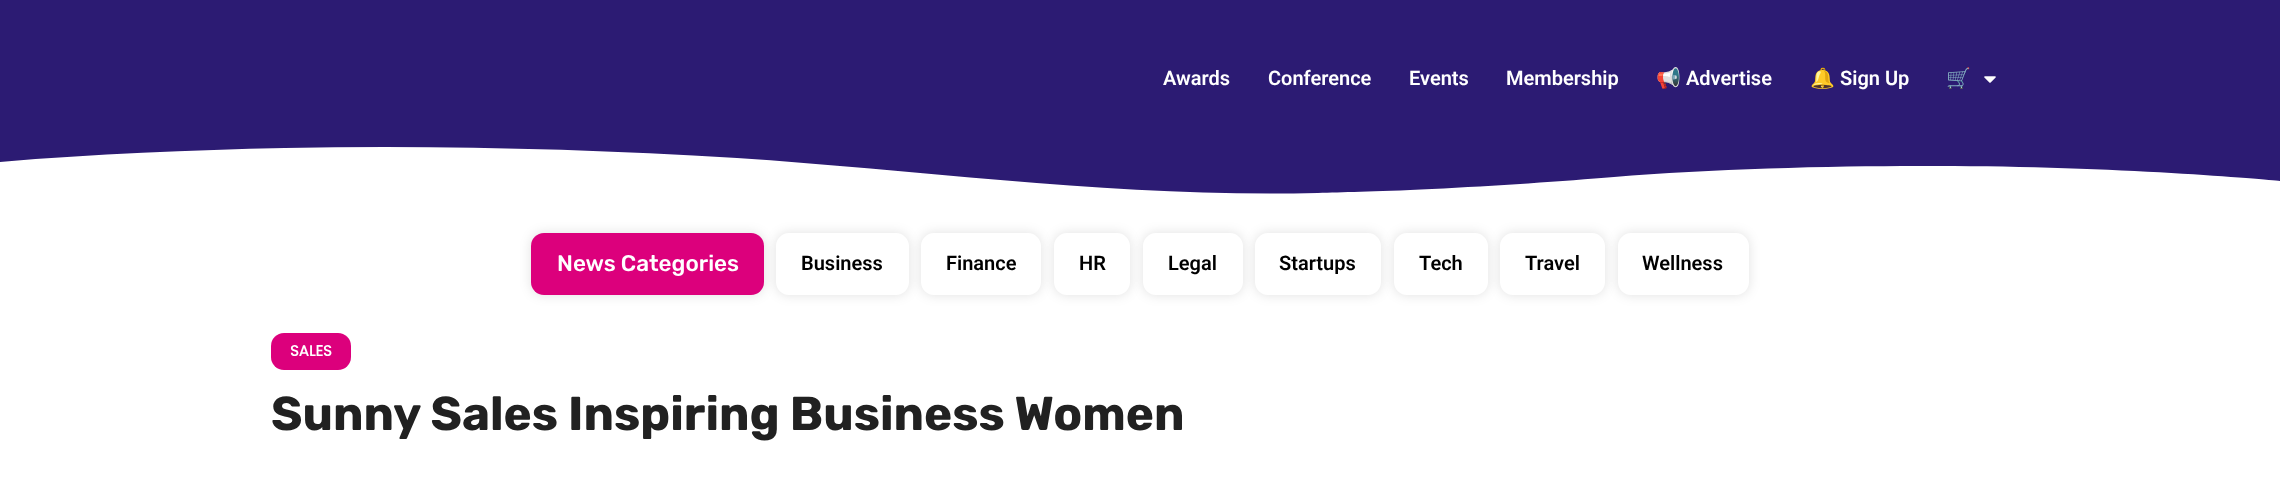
<!DOCTYPE html>
<meta charset="utf-8">
<style>body { margin: 0 } canvas { display: block }</style>
<canvas id="canvas" width="2280" height="485"></canvas>
<img id="img1" src="img_01.png" hidden>
<script>
window.onload = function () {
	const canvas = document.getElementById("canvas");
	const ctx = canvas.getContext("2d");
	ctx.miterLimit = 4;
	ctx.fontKerning = "normal";
	function txt(s, x, y) {
		ctx.fillText(s, x, y);
	}
	function fill(x, y, w, h) {
		ctx.fillRect(x, y, w, h);
	}
	function round(x, y, w, h, r) {
		ctx.beginPath();
		ctx.roundRect(x, y, w, h, r);
		ctx.fill();
	}
	function img(id, x, y, w, h) {
		ctx.drawImage(document.getElementById(id), x, y, w, h);
	}

	ctx.fillStyle = "#FFFFFF";
	fill(0, 0, 2280, 485);
	ctx.fillStyle = "#2C1B73";
	fill(0, 0, 2280, 194);
	img("img1", 1984, 76, 12, 7);
	ctx.fillStyle = "#FFFFFF";
	ctx.beginPath();
	ctx.moveTo(1318, 193);
	ctx.bezierCurveTo(1124, 198, 931, 171, 737, 158);
	ctx.bezierCurveTo(587, 149, 436, 145, 285, 148);
	ctx.bezierCurveTo(190, 150, 94, 154, -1, 162);
	ctx.lineTo(-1, 196);
	ctx.lineTo(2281, 196);
	ctx.lineTo(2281, 181);
	ctx.bezierCurveTo(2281, 181, 2117, 165, 1919, 166);
	ctx.bezierCurveTo(1830, 166, 1708, 169, 1614, 177);
	ctx.bezierCurveTo(1565, 181, 1495, 186, 1432, 189);
	ctx.bezierCurveTo(1370, 192, 1342, 192, 1318, 193);
	ctx.closePath();
	ctx.fill();
	ctx.fillStyle = "rgba(0, 0, 0, 0.12)";
	ctx.filter = "blur(6px)";
	ctx.beginPath();
	ctx.roundRect(531, 233, 233, 62, 13);
	ctx.fill();
	ctx.filter = "none";
	ctx.fillStyle = "#DC007C";
	round(531, 233, 233, 62, 13);
	ctx.save();
	ctx.beginPath();
	ctx.moveTo(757, 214);
	ctx.lineTo(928, 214);
	ctx.lineTo(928, 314);
	ctx.lineTo(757, 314);
	ctx.closePath();
	ctx.moveTo(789, 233);
	ctx.lineTo(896, 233);
	ctx.bezierCurveTo(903, 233, 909, 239, 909, 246);
	ctx.lineTo(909, 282);
	ctx.bezierCurveTo(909, 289, 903, 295, 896, 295);
	ctx.lineTo(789, 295);
	ctx.bezierCurveTo(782, 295, 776, 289, 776, 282);
	ctx.lineTo(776, 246);
	ctx.bezierCurveTo(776, 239, 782, 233, 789, 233);
	ctx.closePath();
	ctx.clip("evenodd");
	ctx.fillStyle = "rgba(0, 0, 0, 0.12)";
	ctx.filter = "blur(6px)";
	ctx.beginPath();
	ctx.roundRect(776, 233, 133, 62, 13);
	ctx.fill();
	ctx.filter = "none";
	ctx.restore();
	ctx.save();
	ctx.beginPath();
	ctx.moveTo(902, 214);
	ctx.lineTo(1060, 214);
	ctx.lineTo(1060, 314);
	ctx.lineTo(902, 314);
	ctx.closePath();
	ctx.moveTo(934, 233);
	ctx.lineTo(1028, 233);
	ctx.bezierCurveTo(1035, 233, 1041, 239, 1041, 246);
	ctx.lineTo(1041, 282);
	ctx.bezierCurveTo(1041, 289, 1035, 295, 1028, 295);
	ctx.lineTo(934, 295);
	ctx.bezierCurveTo(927, 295, 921, 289, 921, 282);
	ctx.lineTo(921, 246);
	ctx.bezierCurveTo(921, 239, 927, 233, 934, 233);
	ctx.closePath();
	ctx.clip("evenodd");
	ctx.fillStyle = "rgba(0, 0, 0, 0.12)";
	ctx.filter = "blur(6px)";
	ctx.beginPath();
	ctx.roundRect(921, 233, 120, 62, 13);
	ctx.fill();
	ctx.filter = "none";
	ctx.restore();
	ctx.save();
	ctx.beginPath();
	ctx.moveTo(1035, 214);
	ctx.lineTo(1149, 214);
	ctx.lineTo(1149, 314);
	ctx.lineTo(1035, 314);
	ctx.closePath();
	ctx.moveTo(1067, 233);
	ctx.lineTo(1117, 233);
	ctx.bezierCurveTo(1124, 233, 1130, 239, 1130, 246);
	ctx.lineTo(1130, 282);
	ctx.bezierCurveTo(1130, 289, 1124, 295, 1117, 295);
	ctx.lineTo(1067, 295);
	ctx.bezierCurveTo(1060, 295, 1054, 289, 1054, 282);
	ctx.lineTo(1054, 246);
	ctx.bezierCurveTo(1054, 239, 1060, 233, 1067, 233);
	ctx.closePath();
	ctx.clip("evenodd");
	ctx.fillStyle = "rgba(0, 0, 0, 0.12)";
	ctx.filter = "blur(6px)";
	ctx.beginPath();
	ctx.roundRect(1054, 233, 76, 62, 13);
	ctx.fill();
	ctx.filter = "none";
	ctx.restore();
	ctx.save();
	ctx.beginPath();
	ctx.moveTo(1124, 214);
	ctx.lineTo(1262, 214);
	ctx.lineTo(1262, 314);
	ctx.lineTo(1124, 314);
	ctx.closePath();
	ctx.moveTo(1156, 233);
	ctx.lineTo(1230, 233);
	ctx.bezierCurveTo(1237, 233, 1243, 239, 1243, 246);
	ctx.lineTo(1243, 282);
	ctx.bezierCurveTo(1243, 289, 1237, 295, 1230, 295);
	ctx.lineTo(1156, 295);
	ctx.bezierCurveTo(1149, 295, 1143, 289, 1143, 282);
	ctx.lineTo(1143, 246);
	ctx.bezierCurveTo(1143, 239, 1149, 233, 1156, 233);
	ctx.closePath();
	ctx.clip("evenodd");
	ctx.fillStyle = "rgba(0, 0, 0, 0.12)";
	ctx.filter = "blur(6px)";
	ctx.beginPath();
	ctx.roundRect(1143, 233, 100, 62, 13);
	ctx.fill();
	ctx.filter = "none";
	ctx.restore();
	ctx.save();
	ctx.beginPath();
	ctx.moveTo(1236, 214);
	ctx.lineTo(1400, 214);
	ctx.lineTo(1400, 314);
	ctx.lineTo(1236, 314);
	ctx.closePath();
	ctx.moveTo(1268, 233);
	ctx.lineTo(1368, 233);
	ctx.bezierCurveTo(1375, 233, 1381, 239, 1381, 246);
	ctx.lineTo(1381, 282);
	ctx.bezierCurveTo(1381, 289, 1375, 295, 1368, 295);
	ctx.lineTo(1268, 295);
	ctx.bezierCurveTo(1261, 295, 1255, 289, 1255, 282);
	ctx.lineTo(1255, 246);
	ctx.bezierCurveTo(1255, 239, 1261, 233, 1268, 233);
	ctx.closePath();
	ctx.clip("evenodd");
	ctx.fillStyle = "rgba(0, 0, 0, 0.12)";
	ctx.filter = "blur(6px)";
	ctx.beginPath();
	ctx.roundRect(1255, 233, 126, 62, 13);
	ctx.fill();
	ctx.filter = "none";
	ctx.restore();
	ctx.save();
	ctx.beginPath();
	ctx.moveTo(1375, 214);
	ctx.lineTo(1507, 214);
	ctx.lineTo(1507, 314);
	ctx.lineTo(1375, 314);
	ctx.closePath();
	ctx.moveTo(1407, 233);
	ctx.lineTo(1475, 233);
	ctx.bezierCurveTo(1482, 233, 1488, 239, 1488, 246);
	ctx.lineTo(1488, 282);
	ctx.bezierCurveTo(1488, 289, 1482, 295, 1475, 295);
	ctx.lineTo(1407, 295);
	ctx.bezierCurveTo(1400, 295, 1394, 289, 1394, 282);
	ctx.lineTo(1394, 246);
	ctx.bezierCurveTo(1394, 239, 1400, 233, 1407, 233);
	ctx.closePath();
	ctx.clip("evenodd");
	ctx.fillStyle = "rgba(0, 0, 0, 0.12)";
	ctx.filter = "blur(6px)";
	ctx.beginPath();
	ctx.roundRect(1394, 233, 94, 62, 13);
	ctx.fill();
	ctx.filter = "none";
	ctx.restore();
	ctx.save();
	ctx.beginPath();
	ctx.moveTo(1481, 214);
	ctx.lineTo(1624, 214);
	ctx.lineTo(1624, 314);
	ctx.lineTo(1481, 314);
	ctx.closePath();
	ctx.moveTo(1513, 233);
	ctx.lineTo(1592, 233);
	ctx.bezierCurveTo(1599, 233, 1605, 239, 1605, 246);
	ctx.lineTo(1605, 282);
	ctx.bezierCurveTo(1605, 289, 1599, 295, 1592, 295);
	ctx.lineTo(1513, 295);
	ctx.bezierCurveTo(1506, 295, 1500, 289, 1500, 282);
	ctx.lineTo(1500, 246);
	ctx.bezierCurveTo(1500, 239, 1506, 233, 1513, 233);
	ctx.closePath();
	ctx.clip("evenodd");
	ctx.fillStyle = "rgba(0, 0, 0, 0.12)";
	ctx.filter = "blur(6px)";
	ctx.beginPath();
	ctx.roundRect(1500, 233, 105, 62, 13);
	ctx.fill();
	ctx.filter = "none";
	ctx.restore();
	ctx.save();
	ctx.beginPath();
	ctx.moveTo(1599, 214);
	ctx.lineTo(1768, 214);
	ctx.lineTo(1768, 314);
	ctx.lineTo(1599, 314);
	ctx.closePath();
	ctx.moveTo(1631, 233);
	ctx.lineTo(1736, 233);
	ctx.bezierCurveTo(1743, 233, 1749, 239, 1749, 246);
	ctx.lineTo(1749, 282);
	ctx.bezierCurveTo(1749, 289, 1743, 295, 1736, 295);
	ctx.lineTo(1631, 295);
	ctx.bezierCurveTo(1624, 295, 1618, 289, 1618, 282);
	ctx.lineTo(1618, 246);
	ctx.bezierCurveTo(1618, 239, 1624, 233, 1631, 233);
	ctx.closePath();
	ctx.clip("evenodd");
	ctx.fillStyle = "rgba(0, 0, 0, 0.12)";
	ctx.filter = "blur(6px)";
	ctx.beginPath();
	ctx.roundRect(1618, 233, 131, 62, 13);
	ctx.fill();
	ctx.filter = "none";
	ctx.restore();
	round(271, 333, 80, 37, 13);
	ctx.font = "600 20px Roboto";
	ctx.fillStyle = "#FFFFFF";
	txt("Awards", 1163, 85);
	txt("Conference", 1268, 85);
	txt("Events", 1409, 85);
	txt("Membership", 1506, 85);
	ctx.font = "bold 20px Noto Color Emoji";
	txt("📢", 1656, 85);
	ctx.font = "600 20px Roboto";
	txt("Advertise", 1686, 85);
	ctx.font = "bold 20px Noto Color Emoji";
	txt("🔔", 1810, 85);
	ctx.font = "600 20px Roboto";
	txt("Sign Up", 1840, 85);
	ctx.font = "bold 20px Noto Color Emoji";
	txt("🛒", 1946, 85);
	ctx.font = "500 22.5px Rubik";
	txt("News Categories", 557, 271);
	ctx.font = "600 20px Roboto";
	ctx.fillStyle = "#000000";
	txt("Business", 801, 270);
	txt("Finance", 946, 270);
	txt("HR", 1079, 270);
	txt("Legal", 1168, 270);
	txt("Startups", 1279, 270);
	txt("Tech", 1419, 270);
	txt("Travel", 1525, 270);
	txt("Wellness", 1642, 270);
	ctx.font = "bold 15px Poppins";
	ctx.fillStyle = "#FFFFFF";
	txt("SALES", 290, 356);
	ctx.font = "bold 47.5px Rubik";
	ctx.fillStyle = "#212121";
	txt("Sunny Sales Inspiring Business Women", 271, 430);
};
</script>
